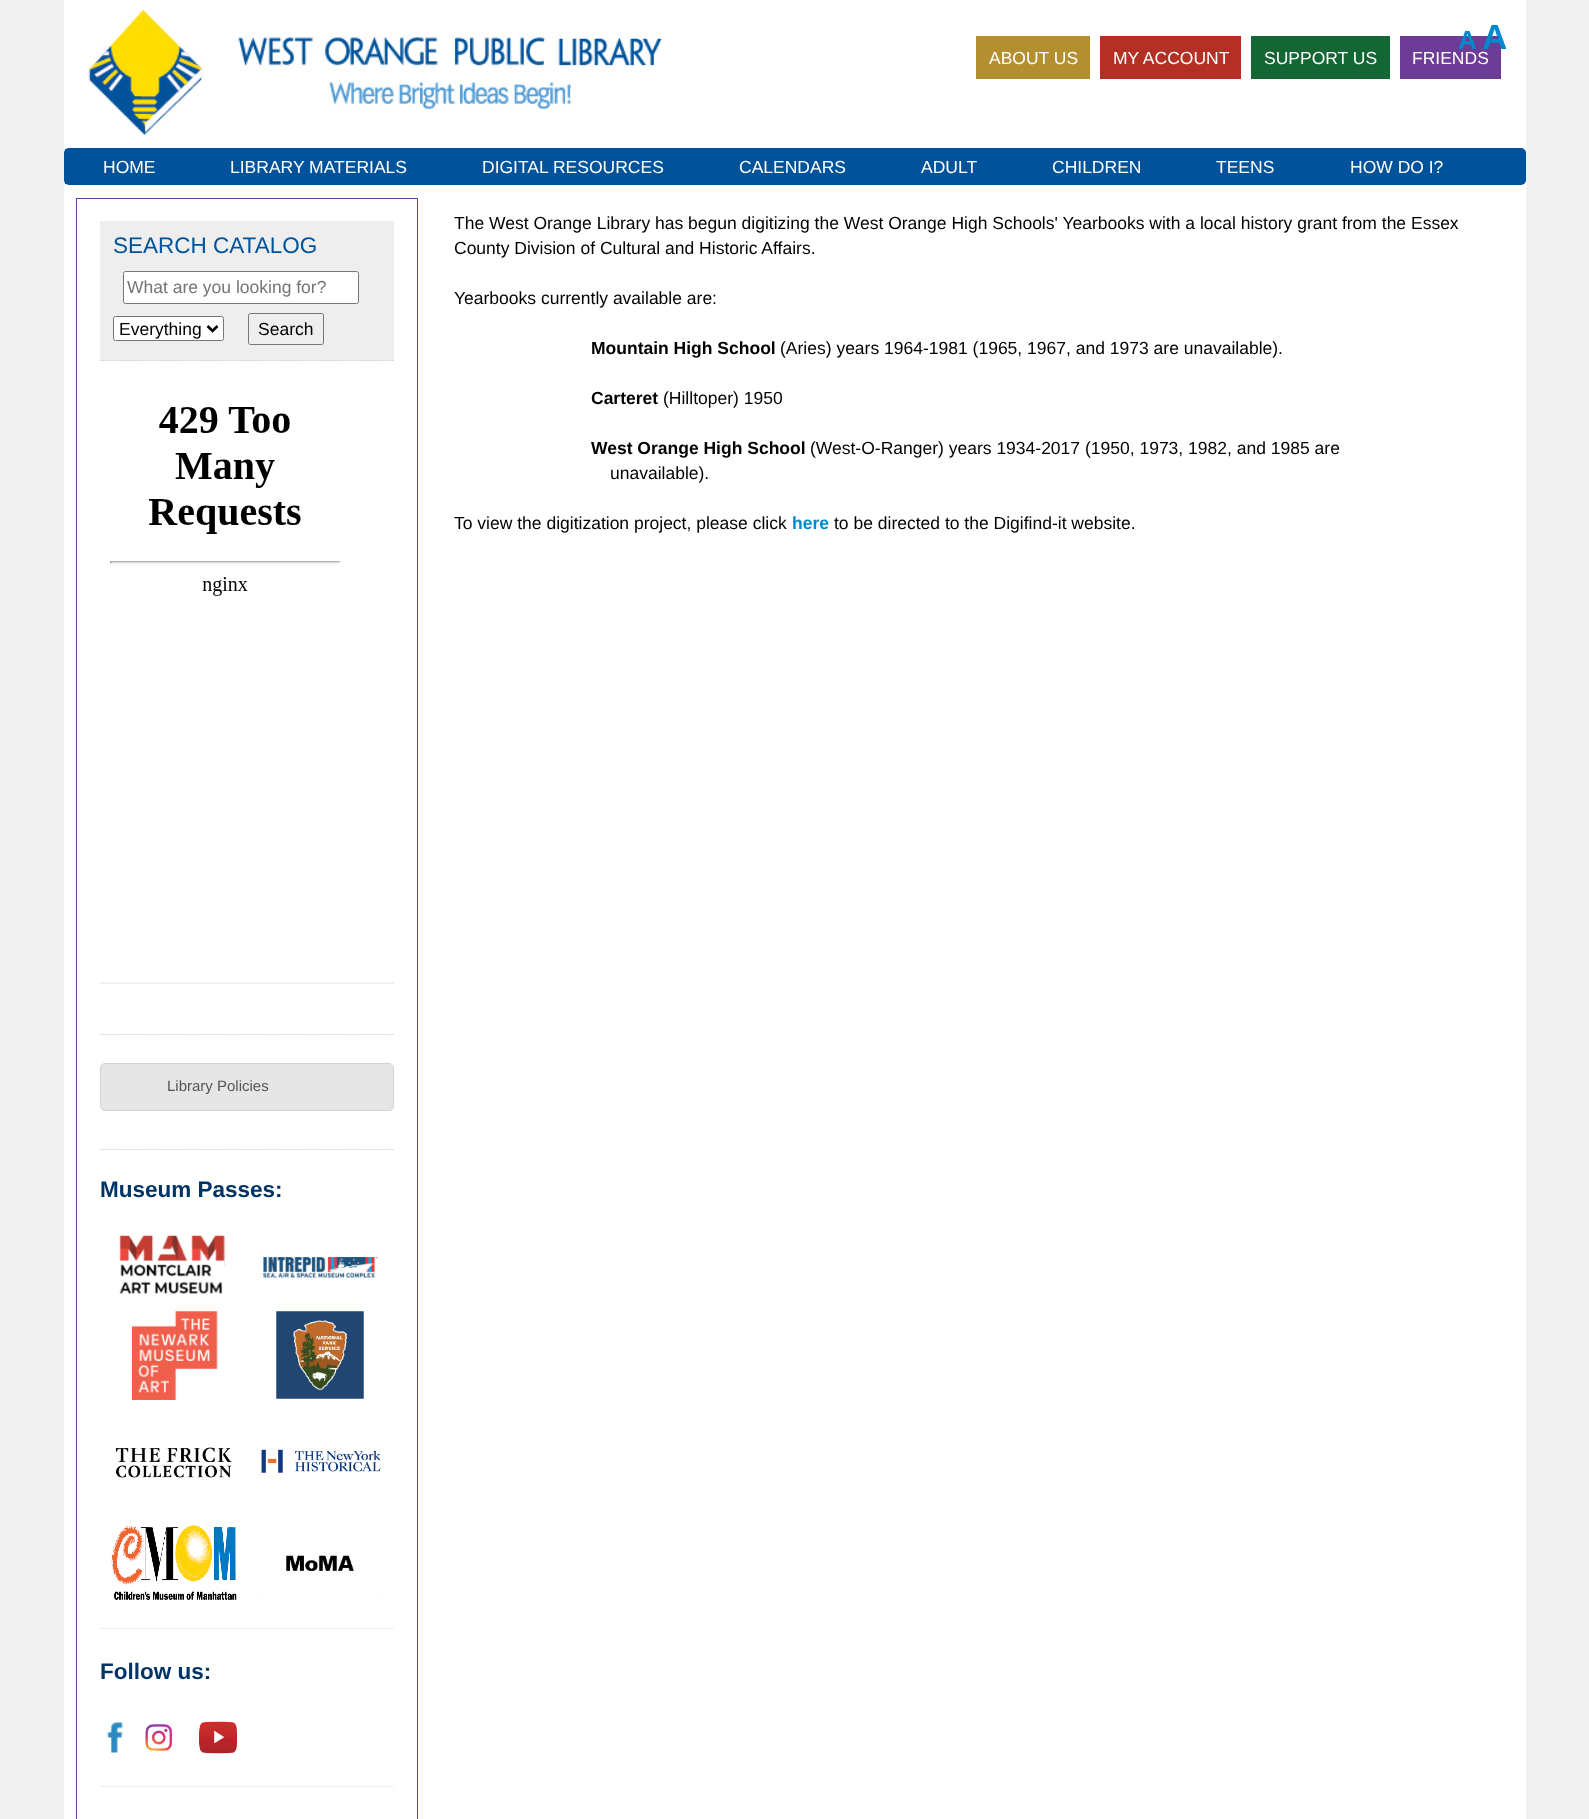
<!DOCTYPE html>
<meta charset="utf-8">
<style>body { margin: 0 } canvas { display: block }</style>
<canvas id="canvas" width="1589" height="1819"></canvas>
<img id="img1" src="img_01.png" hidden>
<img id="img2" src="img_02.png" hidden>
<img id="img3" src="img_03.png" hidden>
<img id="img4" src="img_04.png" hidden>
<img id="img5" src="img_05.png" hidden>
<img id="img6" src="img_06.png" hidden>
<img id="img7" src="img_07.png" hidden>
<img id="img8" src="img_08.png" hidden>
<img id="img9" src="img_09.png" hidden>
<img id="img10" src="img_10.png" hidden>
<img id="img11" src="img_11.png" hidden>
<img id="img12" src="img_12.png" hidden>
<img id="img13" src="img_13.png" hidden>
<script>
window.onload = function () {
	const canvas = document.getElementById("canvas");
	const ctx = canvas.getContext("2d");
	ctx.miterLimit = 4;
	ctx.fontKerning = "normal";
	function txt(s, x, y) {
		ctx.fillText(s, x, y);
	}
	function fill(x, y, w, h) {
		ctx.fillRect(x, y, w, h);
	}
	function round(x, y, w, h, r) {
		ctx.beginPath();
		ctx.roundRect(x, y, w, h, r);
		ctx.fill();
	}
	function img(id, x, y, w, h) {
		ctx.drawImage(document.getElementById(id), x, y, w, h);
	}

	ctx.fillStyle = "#F1F1F2";
	fill(0, 0, 1589, 1819);
	ctx.fillStyle = "#FFFFFF";
	fill(64, 0, 1462, 185);
	img("img1", 88, 10, 574, 126);
	ctx.fillStyle = "#B38F2F";
	fill(976, 36, 114, 43);
	ctx.fillStyle = "#B43025";
	fill(1100, 36, 141, 43);
	ctx.fillStyle = "#146634";
	fill(1251, 36, 139, 43);
	ctx.fillStyle = "#6D3C97";
	fill(1400, 36, 101, 43);
	ctx.fillStyle = "#00539B";
	round(64, 148, 1462, 37, 5);
	fill(65, 149, 1, 35);
	ctx.fillStyle = "#FFFFFF";
	fill(64, 185, 1462, 1634);
	ctx.strokeStyle = "#6D3D97";
	ctx.strokeRect(76.5, 198.5, 341, 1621);
	ctx.fillStyle = "#EEEEEE";
	fill(100, 221, 294, 140);
	ctx.beginPath();
	ctx.moveTo(100, 360.5);
	ctx.lineTo(394, 360.5);
	ctx.strokeStyle = "#CCCCCC";
	ctx.lineWidth = 1.2;
	ctx.setLineDash([1.25, 1.25]);
	ctx.stroke();
	ctx.fillStyle = "#FFFFFF";
	ctx.beginPath();
	ctx.roundRect(123.5, 271.5, 235, 32, 2);
	ctx.fill();
	ctx.strokeStyle = "#767676";
	ctx.lineWidth = 1;
	ctx.setLineDash([]);
	ctx.stroke();
	ctx.beginPath();
	ctx.roundRect(113.5, 316.5, 110, 24, 2);
	ctx.fill();
	ctx.stroke();
	ctx.beginPath();
	ctx.moveTo(207.5, 326);
	ctx.lineTo(212.5, 331);
	ctx.lineTo(217.5, 326);
	ctx.strokeStyle = "#000000";
	ctx.lineWidth = 2.5;
	ctx.stroke();
	ctx.beginPath();
	ctx.roundRect(248.5, 313.5, 75, 31, 2);
	ctx.strokeStyle = "#767676";
	ctx.lineWidth = 1;
	ctx.stroke();
	ctx.beginPath();
	ctx.moveTo(100, 983);
	ctx.lineTo(394, 983);
	ctx.strokeStyle = "#CCCCCC";
	ctx.lineWidth = 1.2;
	ctx.setLineDash([1.25, 1.25]);
	ctx.stroke();
	img("img2", 110, 407, 230, 189);
	ctx.beginPath();
	ctx.moveTo(100, 1034.5);
	ctx.lineTo(394, 1034.5);
	ctx.stroke();
	ctx.beginPath();
	ctx.moveTo(100, 1149.5);
	ctx.lineTo(394, 1149.5);
	ctx.stroke();
	ctx.fillStyle = "#E6E6E6";
	ctx.beginPath();
	ctx.roundRect(100.5, 1063.5, 293, 47, 4.5);
	ctx.fill();
	ctx.strokeStyle = "#D3D3D3";
	ctx.lineWidth = 1;
	ctx.setLineDash([]);
	ctx.stroke();
	img("img3", 119, 1235, 107, 59);
	img("img4", 263, 1257, 116, 22);
	img("img5", 132, 1311, 86, 89);
	img("img6", 276, 1311, 88, 88);
	img("img7", 115, 1447, 117, 31);
	img("img8", 261, 1449, 120, 24);
	img("img9", 111, 1525, 126, 75);
	img("img10", 257, 1525, 126, 75);
	ctx.fillStyle = "#EEEEEE";
	fill(100, 1628, 294, 1);
	img("img11", 107, 1722, 16, 31);
	img("img12", 145, 1724, 28, 27);
	img("img13", 198, 1721, 40, 33);
	fill(100, 1786, 294, 1);
	ctx.font = "bold 26px Liberation Sans";
	ctx.fillStyle = "#0189CD";
	txt("A", 1458, 49);
	ctx.font = "bold 35px Liberation Sans";
	txt("A", 1482, 49);
	ctx.font = "17.5px Liberation Sans";
	ctx.fillStyle = "#FFFFFF";
	txt("ABOUT US", 989, 64);
	txt("MY ACCOUNT", 1113, 64);
	txt("SUPPORT US", 1264, 64);
	txt("FRIENDS", 1412, 64);
	txt("HOME", 103, 173);
	txt("LIBRARY MATERIALS", 230, 173);
	txt("DIGITAL RESOURCES", 482, 173);
	txt("CALENDARS", 739, 173);
	txt("ADULT", 921, 173);
	txt("CHILDREN", 1052, 173);
	txt("TEENS", 1216, 173);
	txt("HOW DO I?", 1350, 173);
	ctx.font = "22.5px Liberation Sans";
	ctx.fillStyle = "#00539A";
	txt("SEARCH CATALOG", 113, 253);
	ctx.font = "17.5px Liberation Sans";
	ctx.fillStyle = "#757575";
	txt("What are you looking for?", 127, 293);
	ctx.fillStyle = "#000000";
	txt("Everything", 119, 335);
	txt("Search", 258, 335);
	ctx.font = "15px Liberation Sans";
	ctx.fillStyle = "#555555";
	txt("Library Policies", 167, 1091);
	ctx.font = "bold 22.5px Liberation Sans";
	ctx.fillStyle = "#003366";
	txt("Museum Passes:", 100, 1197);
	txt("Follow us:", 100, 1679);
	ctx.font = "17.5px Liberation Sans";
	ctx.fillStyle = "#000000";
	txt("The West Orange Library has begun digitizing the West Orange High Schools' Yearbooks with a local history grant from the Essex", 454, 229);
	txt("County Division of Cultural and Historic Affairs.", 454, 254);
	txt("Yearbooks currently available are:", 454, 304);
	ctx.font = "bold 17.5px Liberation Sans";
	txt("Mountain High School", 591, 354);
	ctx.font = "17.5px Liberation Sans";
	txt("(Aries) years 1964-1981 (1965, 1967, and 1973 are unavailable).", 780, 354);
	ctx.font = "bold 17.5px Liberation Sans";
	txt("Carteret", 591, 404);
	ctx.font = "17.5px Liberation Sans";
	txt("(Hilltoper) 1950", 663, 404);
	ctx.font = "bold 17.5px Liberation Sans";
	txt("West Orange High School", 591, 454);
	ctx.font = "17.5px Liberation Sans";
	txt("(West-O-Ranger) years 1934-2017 (1950, 1973, 1982, and 1985 are", 810, 454);
	txt("unavailable).", 610, 479);
	txt("To view the digitization project, please click", 454, 529);
	ctx.font = "bold 17.5px Liberation Sans";
	ctx.fillStyle = "#0189CD";
	txt("here", 792, 529);
	ctx.font = "17.5px Liberation Sans";
	ctx.fillStyle = "#000000";
	txt("to be directed to the Digifind-it website.", 834, 529);
};
</script>
